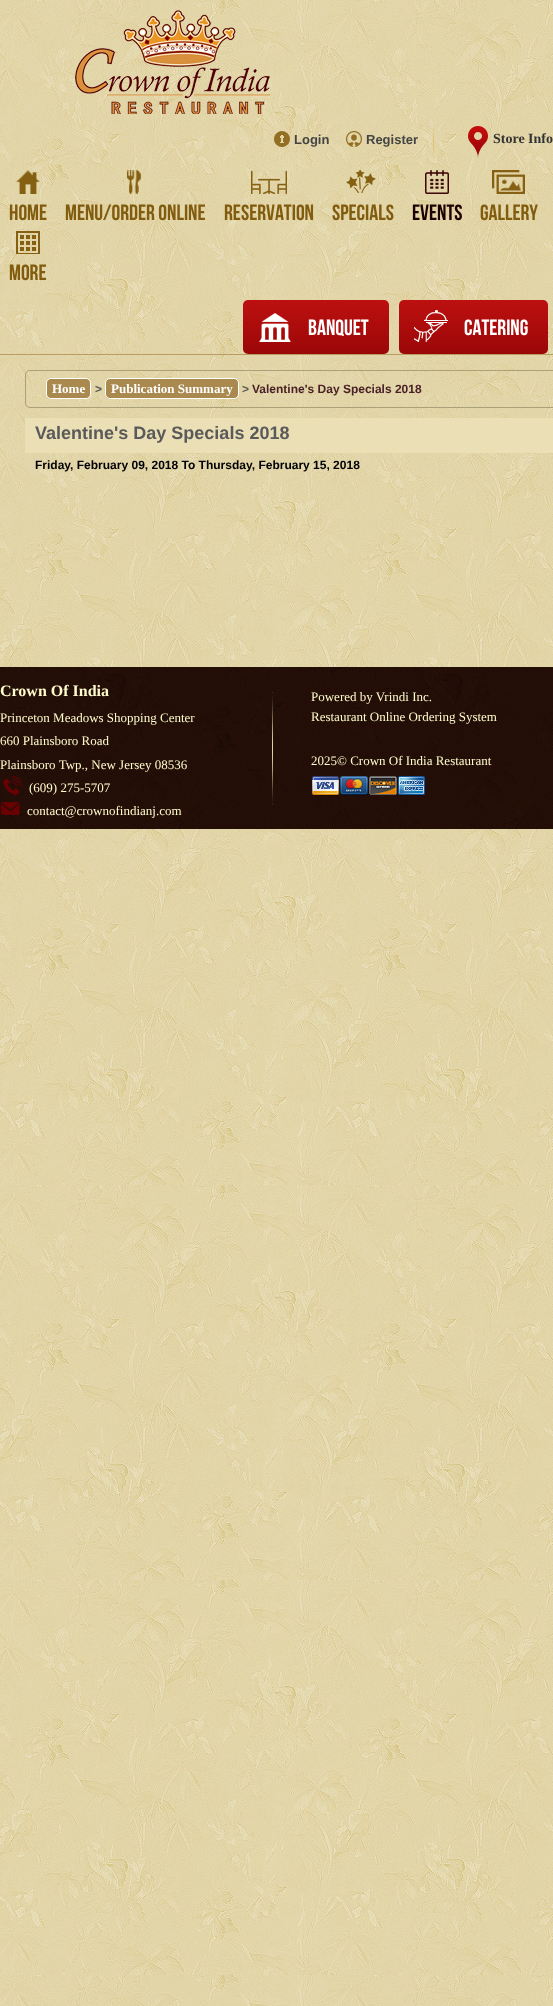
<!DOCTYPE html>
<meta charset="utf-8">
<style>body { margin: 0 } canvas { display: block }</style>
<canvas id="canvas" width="553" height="2006"></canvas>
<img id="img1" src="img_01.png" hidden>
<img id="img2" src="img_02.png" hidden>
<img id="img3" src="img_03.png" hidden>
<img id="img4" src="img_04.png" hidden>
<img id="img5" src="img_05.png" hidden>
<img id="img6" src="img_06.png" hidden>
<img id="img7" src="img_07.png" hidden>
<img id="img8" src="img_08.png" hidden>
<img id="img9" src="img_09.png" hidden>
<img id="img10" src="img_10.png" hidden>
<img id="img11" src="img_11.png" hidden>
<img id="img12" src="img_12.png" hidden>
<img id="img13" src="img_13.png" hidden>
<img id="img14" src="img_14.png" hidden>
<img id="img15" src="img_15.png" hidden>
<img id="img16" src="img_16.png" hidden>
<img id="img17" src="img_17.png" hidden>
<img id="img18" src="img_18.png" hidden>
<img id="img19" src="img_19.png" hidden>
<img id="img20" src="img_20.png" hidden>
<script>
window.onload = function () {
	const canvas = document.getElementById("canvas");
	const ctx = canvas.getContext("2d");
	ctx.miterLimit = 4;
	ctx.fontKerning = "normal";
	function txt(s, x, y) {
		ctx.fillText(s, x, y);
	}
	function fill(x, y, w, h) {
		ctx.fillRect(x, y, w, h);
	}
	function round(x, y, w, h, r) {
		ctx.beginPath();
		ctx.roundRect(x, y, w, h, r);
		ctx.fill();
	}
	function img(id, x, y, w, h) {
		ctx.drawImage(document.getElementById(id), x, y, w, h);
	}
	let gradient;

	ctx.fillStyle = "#FFFFFF";
	fill(0, 0, 553, 2006);
	img("img1", 0, 0, 553, 2006);
	ctx.fillStyle = "#B79D63";
	fill(0, 354, 553, 1);
	img("img2", 75, 10, 195, 104);
	img("img3", 274, 131, 16, 16);
	img("img4", 346, 131, 16, 16);
	img("img5", 433, 127, 1, 31);
	img("img6", 468, 126, 20, 32);
	img("img7", 16, 170, 24, 24);
	img("img8", 123, 170, 18, 24);
	img("img9", 251, 170, 36, 24);
	img("img10", 346, 170, 30, 23);
	img("img11", 425, 170, 24, 24);
	img("img12", 492, 170, 33, 24);
	img("img13", 16, 231, 24, 23);
	gradient = ctx.createLinearGradient(316, 300, 316, 354);
	gradient.addColorStop(0, "#BD1010");
	gradient.addColorStop(1, "#9B0707");
	ctx.fillStyle = gradient;
	round(243, 300, 146, 54, 5);
	img("img14", 259, 313, 32, 29);
	gradient = ctx.createLinearGradient(474, 300, 474, 354);
	gradient.addColorStop(0, "#BD1010");
	gradient.addColorStop(1, "#9B0707");
	ctx.fillStyle = gradient;
	round(399, 300, 149, 54, 5);
	img("img15", 414, 310, 34, 32);
	ctx.beginPath();
	ctx.roundRect(25.5, 370.5, 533, 37, 4.5);
	ctx.strokeStyle = "#AAA178";
	ctx.stroke();
	ctx.fillStyle = "#A9894E";
	ctx.beginPath();
	ctx.roundRect(46.5, 378.5, 44, 20, 4.5);
	ctx.fill();
	ctx.strokeStyle = "#FFFFFF";
	ctx.stroke();
	ctx.beginPath();
	ctx.roundRect(105.5, 378.5, 133, 20, 4.5);
	ctx.fill();
	ctx.stroke();
	ctx.fillStyle = "#EBDFB5";
	fill(25, 418, 528, 35);
	img("img16", 0, 667, 553, 162);
	img("img17", 3, 776, 19, 19);
	img("img18", 0, 802, 20, 13);
	img("img19", 272, 692, 1, 113);
	img("img20", 312, 776, 114, 20);
	ctx.font = "bold 13px Liberation Sans";
	ctx.fillStyle = "#444444";
	txt("Login", 294, 144);
	txt("Register", 366, 144);
	ctx.font = "bold 14px Liberation Serif";
	ctx.fillStyle = "#333333";
	txt("Store Info", 493, 143);
	ctx.font = "22px Bebas Neue";
	ctx.fillStyle = "#815C0E";
	txt("HOME", 9, 220);
	txt("MENU/ORDER ONLINE", 65, 220);
	txt("RESERVATION", 224, 220);
	txt("SPECIALS", 332, 220);
	ctx.fillStyle = "#1D0000";
	txt("EVENTS", 412, 220);
	ctx.fillStyle = "#815C0E";
	txt("GALLERY", 480, 220);
	txt("MORE", 9, 280);
	ctx.fillStyle = "#FFFFFF";
	txt("Banquet", 308, 335);
	txt("Catering", 464, 335);
	ctx.font = "bold 13px Liberation Serif";
	txt("Home", 52, 393);
	ctx.font = "bold 12px Liberation Sans";
	ctx.fillStyle = "#5A5A5A";
	txt(">", 95, 393);
	ctx.font = "bold 13px Liberation Serif";
	ctx.fillStyle = "#FFFFFF";
	txt("Publication Summary", 111, 393);
	ctx.font = "bold 12px Liberation Sans";
	ctx.fillStyle = "#5A5A5A";
	txt(">", 242, 393);
	ctx.fillStyle = "#4A2127";
	txt("Valentine's Day Specials 2018", 252, 393);
	ctx.font = "bold 18px Liberation Sans";
	ctx.fillStyle = "#5A5A5A";
	txt("Valentine's Day Specials 2018", 35, 439);
	ctx.font = "bold 12px Liberation Sans";
	ctx.fillStyle = "#000000";
	txt("Friday, February 09, 2018 To Thursday, February 15, 2018", 35, 469);
	ctx.font = "bold 16px Liberation Serif";
	ctx.fillStyle = "#FFFBCC";
	txt("Crown Of India", 0, 696);
	ctx.font = "13px Liberation Serif";
	txt("Princeton Meadows Shopping Center", 0, 722);
	txt("660 Plainsboro Road", 0, 745);
	txt("Plainsboro Twp., New Jersey 08536", 0, 769);
	txt("(609) 275-5707", 29, 792);
	txt("contact@crownofindianj.com", 27, 815);
	txt("Powered by Vrindi Inc.", 311, 701);
	txt("Restaurant Online Ordering System", 311, 721);
	txt("2025© Crown Of India Restaurant", 311, 765);
};
</script>
